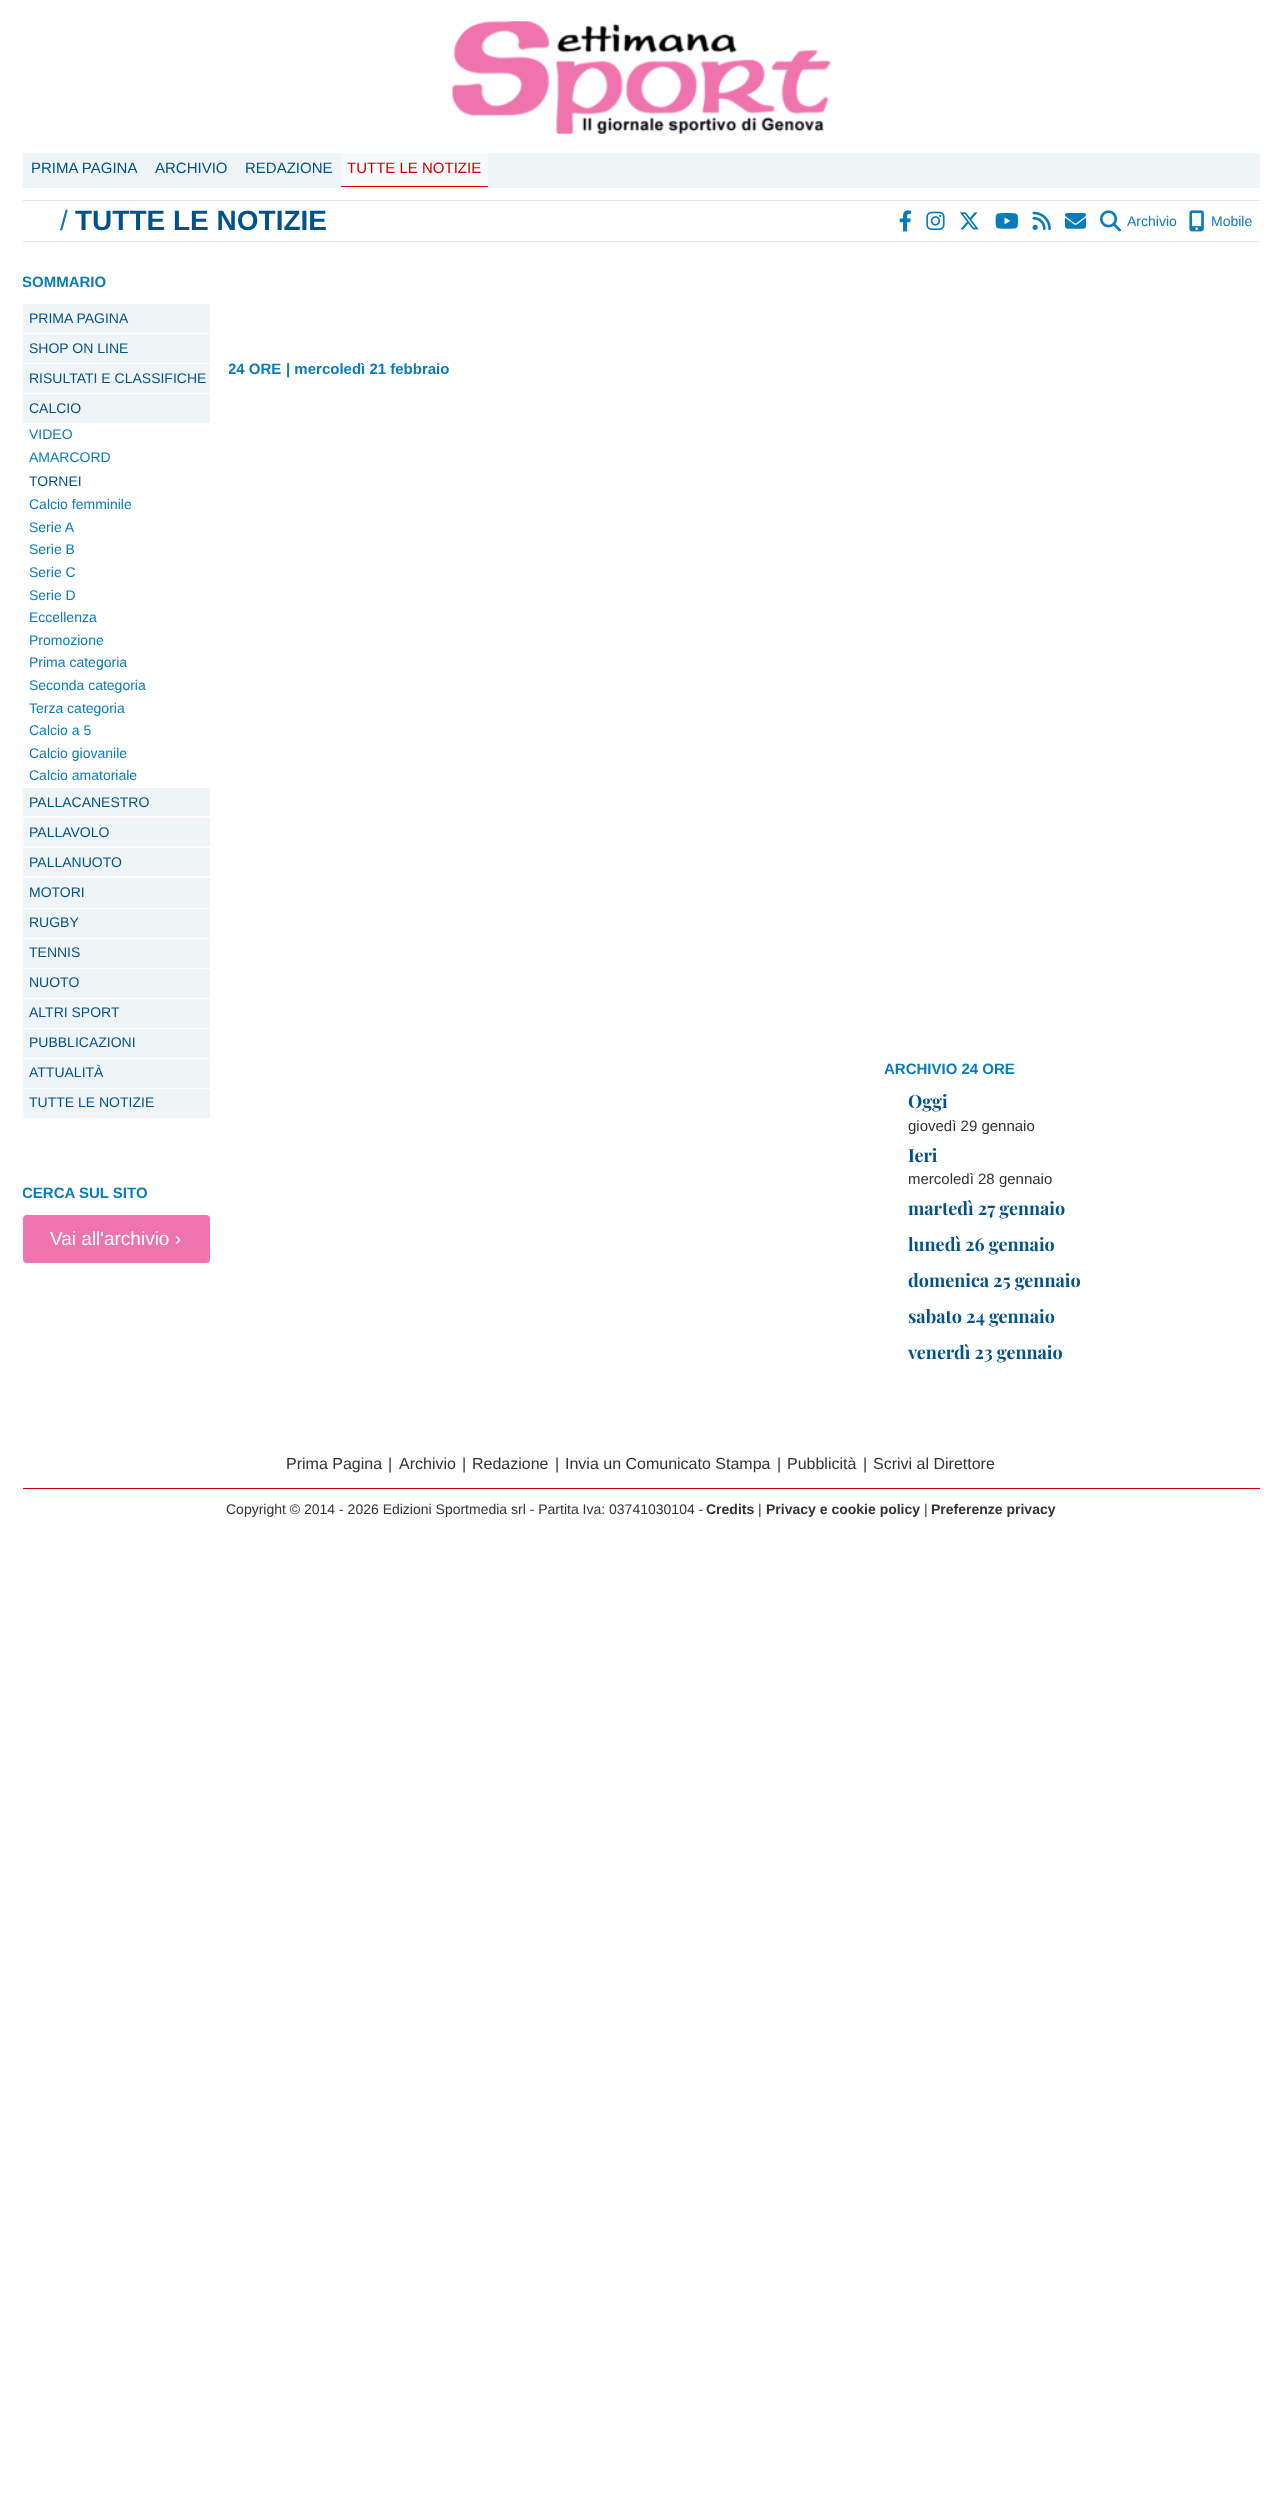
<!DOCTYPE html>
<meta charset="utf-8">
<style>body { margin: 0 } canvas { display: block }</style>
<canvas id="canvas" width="1281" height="2508"></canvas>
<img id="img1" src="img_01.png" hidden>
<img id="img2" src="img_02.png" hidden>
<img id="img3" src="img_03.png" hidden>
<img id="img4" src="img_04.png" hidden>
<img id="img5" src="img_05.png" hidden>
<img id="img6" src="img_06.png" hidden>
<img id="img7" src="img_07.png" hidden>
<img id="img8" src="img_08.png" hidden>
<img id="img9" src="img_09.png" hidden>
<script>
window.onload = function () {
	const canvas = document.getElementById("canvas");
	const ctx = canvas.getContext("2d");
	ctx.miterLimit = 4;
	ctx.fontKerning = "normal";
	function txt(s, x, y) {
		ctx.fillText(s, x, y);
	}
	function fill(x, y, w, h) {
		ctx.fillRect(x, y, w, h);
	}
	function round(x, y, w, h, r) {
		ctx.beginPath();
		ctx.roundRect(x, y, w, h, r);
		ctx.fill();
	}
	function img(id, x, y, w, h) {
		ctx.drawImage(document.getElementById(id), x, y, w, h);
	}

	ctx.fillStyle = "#FFFFFF";
	fill(0, 0, 1281, 2508);
	img("img1", 452, 21, 378, 113);
	ctx.fillStyle = "#EFF4F7";
	fill(23, 153, 1237, 35);
	ctx.fillStyle = "#F7F9FB";
	fill(341, 153, 147, 35);
	ctx.fillStyle = "#CC0000";
	fill(341, 186, 147, 1);
	ctx.fillStyle = "#E5E5E5";
	fill(23, 200, 1237, 1);
	fill(23, 241, 1237, 1);
	img("img2", 899, 210, 12, 22);
	img("img3", 926, 211, 19, 20);
	img("img4", 960, 212, 19, 18);
	img("img5", 995, 213, 23, 16);
	img("img6", 1032, 211, 19, 20);
	img("img7", 1065, 213, 21, 16);
	img("img8", 1100, 210, 21, 22);
	img("img9", 1189, 210, 15, 22);
	ctx.fillStyle = "#EFF4F7";
	fill(23, 304, 187, 29);
	fill(23, 334, 187, 29);
	fill(23, 364, 187, 29);
	fill(23, 394, 187, 29);
	fill(23, 788, 187, 28);
	fill(23, 818, 187, 28);
	fill(23, 848, 187, 28);
	fill(23, 878, 187, 30);
	fill(23, 909, 187, 29);
	fill(23, 939, 187, 29);
	fill(23, 969, 187, 29);
	fill(23, 999, 187, 29);
	fill(23, 1029, 187, 29);
	fill(23, 1059, 187, 29);
	fill(23, 1089, 187, 29);
	ctx.fillStyle = "#EF74AD";
	round(23, 1215, 187, 48, 4);
	ctx.fillStyle = "#CC0000";
	fill(23, 1488, 1237, 1);
	ctx.font = "15px Liberation Sans";
	ctx.fillStyle = "#00528A";
	txt("PRIMA PAGINA", 31, 173);
	txt("ARCHIVIO", 155, 173);
	txt("REDAZIONE", 245, 173);
	ctx.fillStyle = "#CC0000";
	txt("TUTTE LE NOTIZIE", 347, 173);
	ctx.font = "28px Liberation Sans";
	ctx.fillStyle = "#087BBB";
	txt("/", 60, 230);
	ctx.font = "bold 28px Liberation Sans";
	ctx.fillStyle = "#00528A";
	txt("TUTTE LE NOTIZIE", 75, 230);
	ctx.font = "14px Liberation Sans";
	ctx.fillStyle = "#087BBB";
	txt("Archivio", 1127, 226);
	txt("Mobile", 1211, 226);
	ctx.save();
	ctx.beginPath();
	ctx.rect(23, 255, 187, 1033);
	ctx.clip();
	ctx.font = "bold 15px Liberation Sans";
	txt("SOMMARIO", 22, 287);
	ctx.restore();
	ctx.fillStyle = "#00528A";
	txt("PRIMA PAGINA", 29, 323);
	txt("SHOP ON LINE", 29, 353);
	txt("RISULTATI E CLASSIFICHE", 29, 383);
	txt("CALCIO", 29, 413);
	ctx.fillStyle = "#087BBB";
	txt("VIDEO", 29, 439);
	txt("AMARCORD", 29, 462);
	ctx.fillStyle = "#00528A";
	txt("TORNEI", 29, 486);
	ctx.fillStyle = "#087BBB";
	txt("Calcio femminile", 29, 509);
	txt("Serie A", 29, 532);
	txt("Serie B", 29, 554);
	txt("Serie C", 29, 577);
	txt("Serie D", 29, 600);
	txt("Eccellenza", 29, 622);
	txt("Promozione", 29, 645);
	txt("Prima categoria", 29, 667);
	txt("Seconda categoria", 29, 690);
	txt("Terza categoria", 29, 713);
	txt("Calcio a 5", 29, 735);
	txt("Calcio giovanile", 29, 758);
	txt("Calcio amatoriale", 29, 780);
	ctx.fillStyle = "#00528A";
	txt("PALLACANESTRO", 29, 807);
	txt("PALLAVOLO", 29, 837);
	txt("PALLANUOTO", 29, 867);
	txt("MOTORI", 29, 897);
	txt("RUGBY", 29, 927);
	txt("TENNIS", 29, 957);
	txt("NUOTO", 29, 987);
	txt("ALTRI SPORT", 29, 1017);
	txt("PUBBLICAZIONI", 29, 1047);
	txt("ATTUALITÀ", 29, 1077);
	txt("TUTTE LE NOTIZIE", 29, 1107);
	ctx.save();
	ctx.beginPath();
	ctx.rect(23, 255, 187, 1033);
	ctx.clip();
	ctx.font = "bold 15px Liberation Sans";
	ctx.fillStyle = "#087BBB";
	txt("CERCA SUL SITO", 22, 1198);
	ctx.restore();
	ctx.font = "19px Liberation Sans";
	ctx.fillStyle = "#FFFFFF";
	txt("Vai all'archivio ›", 50, 1245);
	ctx.save();
	ctx.beginPath();
	ctx.rect(229, 255, 637, 141);
	ctx.clip();
	ctx.font = "bold 15px Liberation Sans";
	ctx.fillStyle = "#087BBB";
	txt("24 ORE", 228, 374);
	ctx.restore();
	ctx.font = "bold 15px Liberation Sans";
	ctx.fillStyle = "#087BBB";
	txt("| mercoledì 21 febbraio", 286, 374);
	txt("ARCHIVIO 24 ORE", 884, 1074);
	ctx.font = "bold 18px Playfair Display";
	ctx.fillStyle = "#00528A";
	txt("Oggi", 908, 1108);
	ctx.font = "15px Liberation Sans";
	ctx.fillStyle = "#333333";
	txt("giovedì 29 gennaio", 908, 1131);
	ctx.font = "bold 18px Playfair Display";
	ctx.fillStyle = "#00528A";
	txt("Ieri", 908, 1162);
	ctx.font = "15px Liberation Sans";
	ctx.fillStyle = "#333333";
	txt("mercoledì 28 gennaio", 908, 1184);
	ctx.font = "bold 18px Playfair Display";
	ctx.fillStyle = "#00528A";
	txt("martedì 27 gennaio", 908, 1215);
	txt("lunedì 26 gennaio", 908, 1251);
	txt("domenica 25 gennaio", 908, 1287);
	txt("sabato 24 gennaio", 908, 1323);
	txt("venerdì 23 gennaio", 908, 1359);
	ctx.font = "16px Liberation Sans";
	ctx.fillStyle = "#333333";
	txt("Prima Pagina", 286, 1469);
	txt("|", 388, 1469);
	txt("Archivio", 399, 1469);
	txt("|", 462, 1469);
	txt("Redazione", 472, 1469);
	txt("|", 555, 1469);
	txt("Invia un Comunicato Stampa", 565, 1469);
	txt("|", 777, 1469);
	txt("Pubblicità", 787, 1469);
	txt("|", 863, 1469);
	txt("Scrivi al Direttore", 873, 1469);
	ctx.font = "14px Liberation Sans";
	txt("Copyright © 2014 - 2026 Edizioni Sportmedia srl - Partita Iva: 03741030104 -", 226, 1514);
	ctx.font = "bold 14px Liberation Sans";
	txt("Credits", 706, 1514);
	ctx.font = "14px Liberation Sans";
	txt("|", 758, 1514);
	ctx.font = "bold 14px Liberation Sans";
	txt("Privacy e cookie policy", 766, 1514);
	ctx.font = "14px Liberation Sans";
	txt("|", 924, 1514);
	ctx.font = "bold 14px Liberation Sans";
	txt("Preferenze privacy", 931, 1514);
};
</script>
